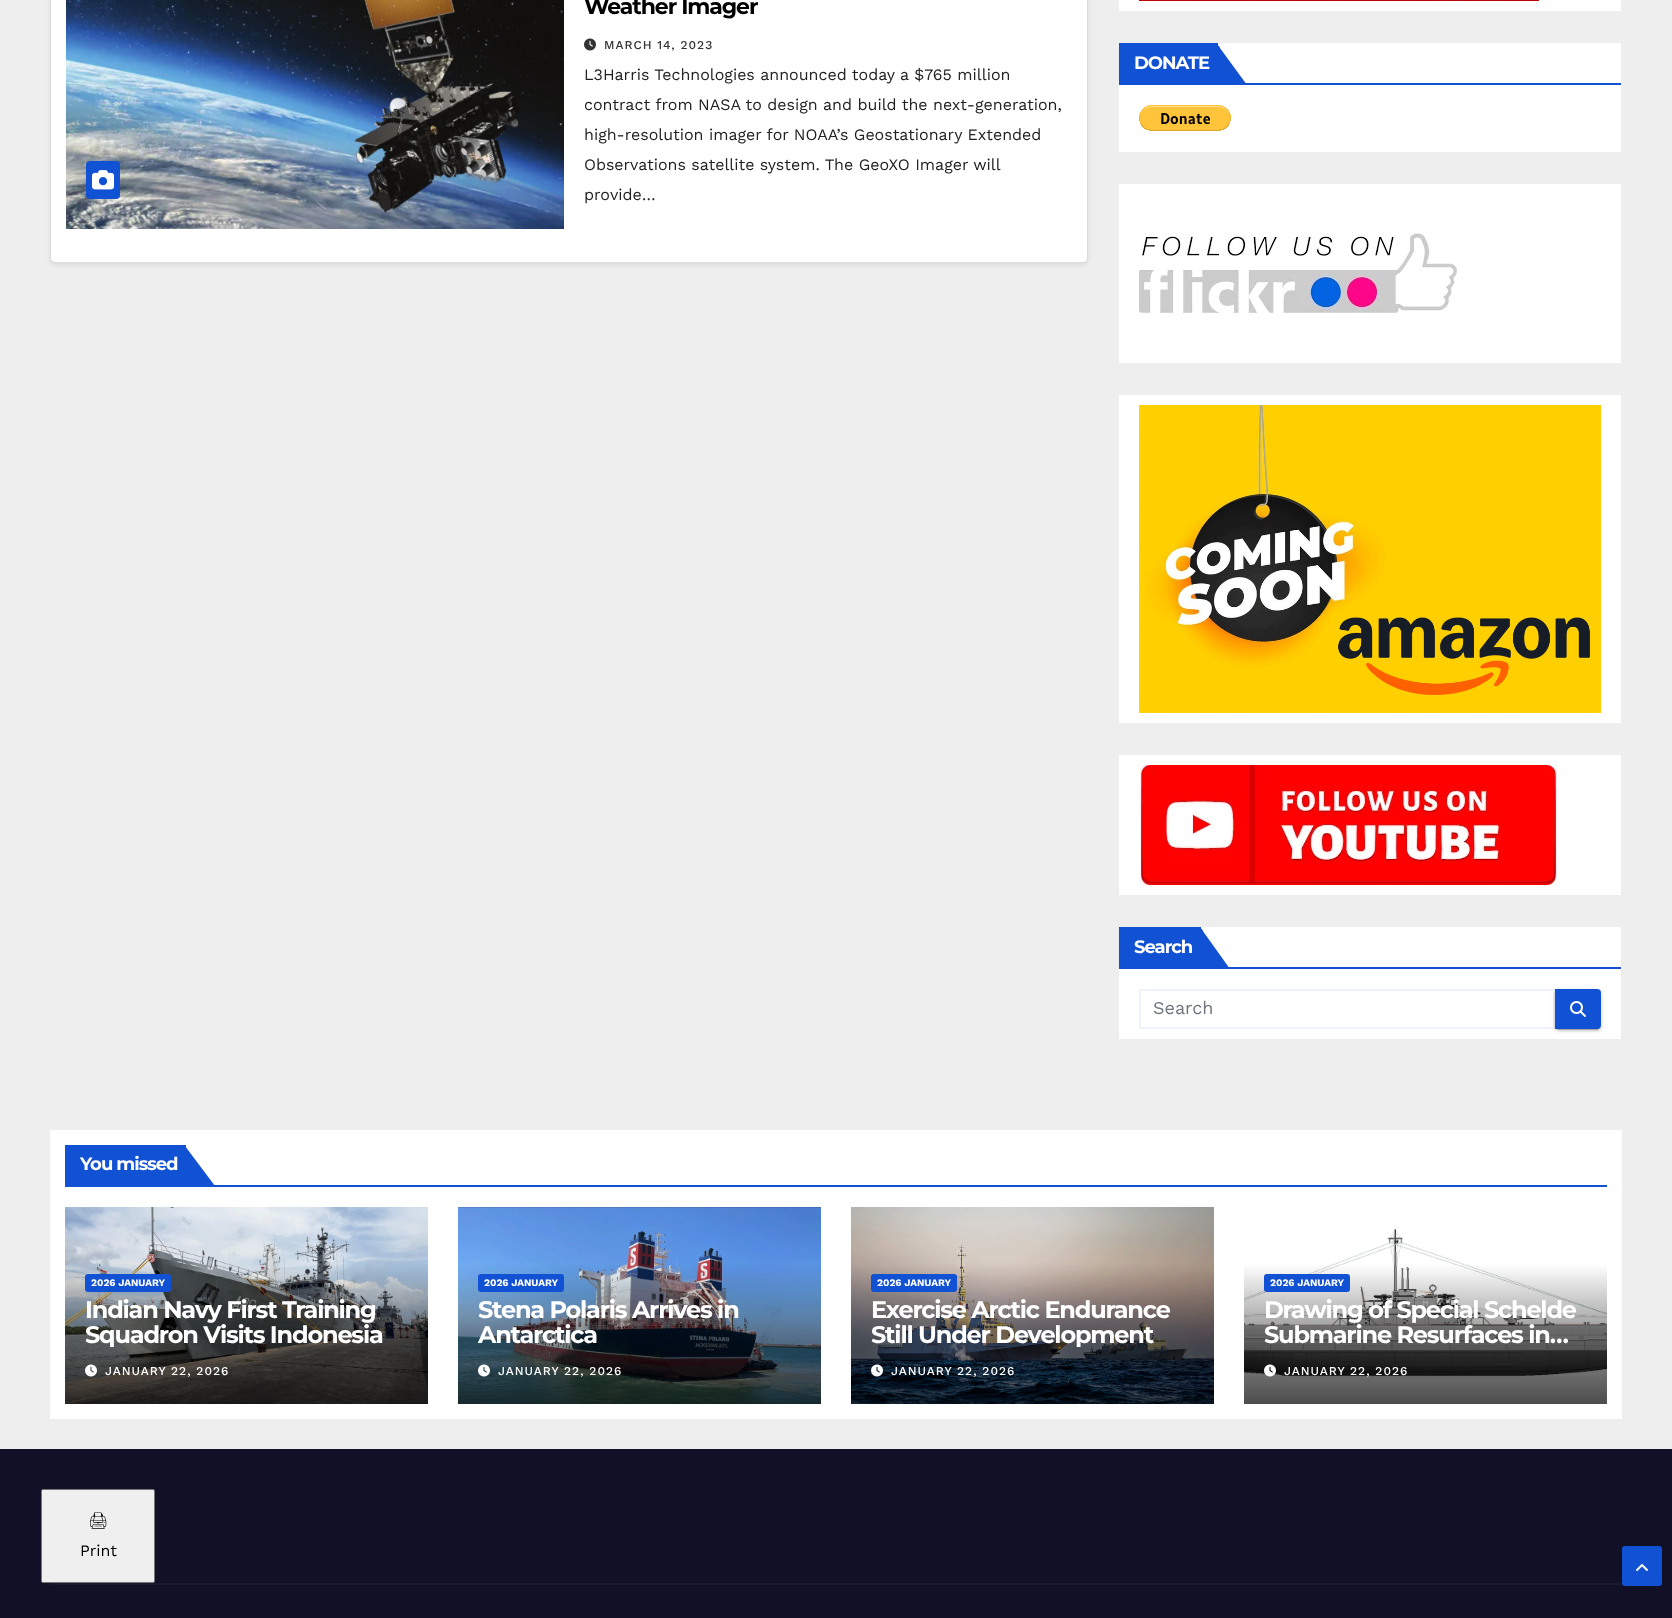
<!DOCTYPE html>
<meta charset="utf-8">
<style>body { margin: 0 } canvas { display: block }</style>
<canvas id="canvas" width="1672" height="1618"></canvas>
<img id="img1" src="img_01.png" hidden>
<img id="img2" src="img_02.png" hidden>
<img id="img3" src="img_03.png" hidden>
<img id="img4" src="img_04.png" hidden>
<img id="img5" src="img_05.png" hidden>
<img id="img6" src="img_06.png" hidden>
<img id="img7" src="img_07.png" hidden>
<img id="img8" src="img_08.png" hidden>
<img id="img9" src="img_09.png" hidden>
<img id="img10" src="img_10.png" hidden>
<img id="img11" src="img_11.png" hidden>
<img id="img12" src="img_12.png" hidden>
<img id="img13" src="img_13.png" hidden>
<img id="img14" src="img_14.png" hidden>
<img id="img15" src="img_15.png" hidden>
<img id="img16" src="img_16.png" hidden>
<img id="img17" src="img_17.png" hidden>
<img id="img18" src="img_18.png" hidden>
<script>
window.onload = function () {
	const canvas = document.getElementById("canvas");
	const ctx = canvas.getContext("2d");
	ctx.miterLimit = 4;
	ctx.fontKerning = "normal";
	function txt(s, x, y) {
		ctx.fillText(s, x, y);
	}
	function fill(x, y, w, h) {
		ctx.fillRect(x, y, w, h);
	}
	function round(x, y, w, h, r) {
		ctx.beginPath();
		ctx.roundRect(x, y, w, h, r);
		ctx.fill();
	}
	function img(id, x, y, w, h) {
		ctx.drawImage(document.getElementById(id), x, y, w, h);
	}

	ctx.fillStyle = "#EEEEEE";
	fill(0, 0, 1672, 1618);
	ctx.fillStyle = "rgba(0, 0, 0, 0.08)";
	ctx.filter = "blur(2px)";
	ctx.beginPath();
	ctx.roundRect(50, -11, 1038, 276, 5);
	ctx.fill();
	ctx.filter = "none";
	ctx.fillStyle = "#FFFFFF";
	ctx.beginPath();
	ctx.roundRect(50.5, -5.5, 1037, 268, 4.5);
	ctx.fill();
	ctx.strokeStyle = "#DDDCDC";
	ctx.stroke();
	img("img1", 66, 0, 498, 229);
	ctx.fillStyle = "#1151D3";
	round(86, 161, 34, 38, 4);
	img("img2", 92, 170, 22, 20);
	img("img3", 584, 38, 12, 13);
	ctx.fillStyle = "#FFFFFF";
	fill(1119, 0, 502, 11);
	img("img4", 1139, 0, 400, 1);
	fill(1119, 43, 502, 109);
	ctx.fillStyle = "#1151D3";
	fill(1119, 83, 502, 2);
	fill(1119, 43, 99, 40);
	ctx.beginPath();
	ctx.moveTo(1247, 85);
	ctx.lineTo(1217, 85);
	ctx.lineTo(1217, 44);
	ctx.closePath();
	ctx.fill();
	ctx.beginPath();
	ctx.moveTo(1217, 85);
	ctx.lineTo(1220, 82);
	ctx.lineTo(1220, 48);
	ctx.lineTo(1217, 44);
	ctx.closePath();
	ctx.fill();
	img("img5", 1139, 105, 92, 26);
	ctx.fillStyle = "#FFFFFF";
	fill(1119, 184, 502, 179);
	img("img6", 1139, 233, 318, 81);
	fill(1119, 395, 502, 328);
	img("img7", 1139, 405, 462, 308);
	fill(1119, 755, 502, 140);
	img("img8", 1139, 765, 419, 120);
	fill(1119, 927, 502, 112);
	ctx.fillStyle = "#1151D3";
	fill(1119, 967, 502, 2);
	fill(1119, 927, 82, 40);
	ctx.beginPath();
	ctx.moveTo(1230, 969);
	ctx.lineTo(1200, 969);
	ctx.lineTo(1200, 927);
	ctx.closePath();
	ctx.fill();
	ctx.beginPath();
	ctx.moveTo(1200, 969);
	ctx.lineTo(1203, 966);
	ctx.lineTo(1203, 931);
	ctx.lineTo(1200, 927);
	ctx.closePath();
	ctx.fill();
	ctx.strokeStyle = "#EEF3FB";
	ctx.lineWidth = 2;
	ctx.strokeRect(1140, 990, 414, 38);
	ctx.fillStyle = "rgba(0, 0, 0, 0.12)";
	ctx.filter = "blur(2.5px)";
	ctx.beginPath();
	ctx.roundRect(1555, 990, 46, 40, 4);
	ctx.fill();
	ctx.filter = "none";
	ctx.fillStyle = "rgba(0, 0, 0, 0.2)";
	ctx.filter = "blur(0.5px)";
	ctx.beginPath();
	ctx.roundRect(1557, 994, 42, 36, 2);
	ctx.fill();
	ctx.filter = "none";
	ctx.fillStyle = "rgba(0, 0, 0, 0.14)";
	ctx.filter = "blur(1px)";
	ctx.beginPath();
	ctx.roundRect(1555, 991, 46, 40, 4);
	ctx.fill();
	ctx.filter = "none";
	ctx.fillStyle = "#1151D3";
	ctx.beginPath();
	ctx.roundRect(1555, 989, 46, 40, [0, 4, 4, 0]);
	ctx.fill();
	img("img9", 1570, 1001, 16, 16);
	ctx.fillStyle = "#FFFFFF";
	fill(50, 1130, 1572, 289);
	ctx.fillStyle = "#1151D3";
	fill(65, 1185, 1542, 2);
	fill(65, 1145, 121, 40);
	ctx.beginPath();
	ctx.moveTo(215, 1186);
	ctx.lineTo(185, 1186);
	ctx.lineTo(185, 1146);
	ctx.closePath();
	ctx.fill();
	img("img10", 65, 1207, 363, 197);
	round(85, 1274, 86, 18, 3);
	img("img11", 85, 1364, 12, 13);
	img("img12", 458, 1207, 363, 197);
	round(478, 1274, 86, 18, 3);
	img("img13", 478, 1364, 12, 13);
	img("img14", 851, 1207, 363, 197);
	round(871, 1274, 86, 18, 3);
	img("img15", 871, 1364, 12, 13);
	img("img16", 1244, 1207, 363, 197);
	round(1264, 1274, 86, 18, 3);
	img("img17", 1264, 1364, 12, 13);
	ctx.fillStyle = "#121026";
	fill(0, 1449, 1672, 169);
	ctx.fillStyle = "#EFEFEF";
	ctx.beginPath();
	ctx.roundRect(41.5, 1489.5, 113, 93, 1.5);
	ctx.fill();
	ctx.strokeStyle = "#767676";
	ctx.lineWidth = 1;
	ctx.stroke();
	ctx.fillStyle = "#1A182E";
	fill(50, 1583, 1572, 2);
	ctx.fillStyle = "#1151D3";
	ctx.beginPath();
	ctx.roundRect(1623, 1547, 38, 38, 2);
	ctx.fill();
	ctx.strokeStyle = "#1151D3";
	ctx.lineWidth = 2;
	ctx.stroke();
	img("img18", 1636, 1564, 12, 7);
	ctx.letterSpacing = "-1.1px";
	ctx.font = "bold 22px Montserrat";
	ctx.fillStyle = "#000000";
	txt("Weather Imager", 584, 14);
	ctx.letterSpacing = "1px";
	ctx.font = "500 12px Work Sans";
	ctx.fillStyle = "#333333";
	txt("MARCH 14, 2023", 604, 49);
	ctx.letterSpacing = "0px";
	ctx.font = "16px Work Sans";
	ctx.fillStyle = "#222222";
	txt("L3Harris Technologies announced today a $765 million", 584, 80);
	txt("contract from NASA to design and build the next-generation,", 584, 110);
	txt("high-resolution imager for NOAA’s Geostationary Extended", 584, 140);
	txt("Observations satellite system. The GeoXO Imager will", 584, 170);
	txt("provide…", 584, 200);
	ctx.letterSpacing = "-1px";
	ctx.font = "bold 18px Montserrat";
	ctx.fillStyle = "#FFFFFF";
	txt("DONATE", 1134, 69);
	txt("Search", 1134, 953);
	ctx.letterSpacing = "0px";
	ctx.font = "18px Work Sans";
	ctx.fillStyle = "#6C757D";
	txt("Search", 1153, 1014);
	ctx.letterSpacing = "-1px";
	ctx.font = "bold 18px Montserrat";
	ctx.fillStyle = "#FFFFFF";
	txt("You missed", 80, 1170);
	ctx.letterSpacing = "0px";
	ctx.font = "bold 10px Work Sans";
	txt("2026 JANUARY", 91, 1286);
	ctx.letterSpacing = "-1.2px";
	ctx.font = "bold 24px Montserrat";
	txt("Indian Navy First Training", 85, 1318);
	ctx.save();
	ctx.beginPath();
	ctx.rect(85, 1297, 323, 50);
	ctx.clip();
	txt("Squadron Visits Indonesia", 85, 1343);
	ctx.restore();
	ctx.letterSpacing = "1px";
	ctx.font = "500 12px Work Sans";
	txt("JANUARY 22, 2026", 105, 1375);
	ctx.letterSpacing = "0px";
	ctx.font = "bold 10px Work Sans";
	txt("2026 JANUARY", 484, 1286);
	ctx.letterSpacing = "-1.2px";
	ctx.font = "bold 24px Montserrat";
	txt("Stena Polaris Arrives in", 478, 1318);
	txt("Antarctica", 478, 1343);
	ctx.letterSpacing = "1px";
	ctx.font = "500 12px Work Sans";
	txt("JANUARY 22, 2026", 498, 1375);
	ctx.letterSpacing = "0px";
	ctx.font = "bold 10px Work Sans";
	txt("2026 JANUARY", 877, 1286);
	ctx.letterSpacing = "-1.2px";
	ctx.font = "bold 24px Montserrat";
	txt("Exercise Arctic Endurance", 871, 1318);
	ctx.save();
	ctx.beginPath();
	ctx.rect(871, 1297, 323, 50);
	ctx.clip();
	txt("Still Under Development", 871, 1343);
	ctx.restore();
	ctx.letterSpacing = "1px";
	ctx.font = "500 12px Work Sans";
	txt("JANUARY 22, 2026", 891, 1375);
	ctx.letterSpacing = "0px";
	ctx.font = "bold 10px Work Sans";
	txt("2026 JANUARY", 1270, 1286);
	ctx.letterSpacing = "-1.2px";
	ctx.font = "bold 24px Montserrat";
	txt("Drawing of Special Schelde", 1264, 1318);
	txt("Submarine Resurfaces in…", 1264, 1343);
	ctx.letterSpacing = "1px";
	ctx.font = "500 12px Work Sans";
	txt("JANUARY 22, 2026", 1284, 1375);
	ctx.letterSpacing = "0px";
	ctx.font = "16px Noto Emoji";
	ctx.fillStyle = "#000000";
	txt("🖨", 88, 1526);
	ctx.font = "16px Work Sans";
	txt("Print", 80, 1556);
};
</script>
